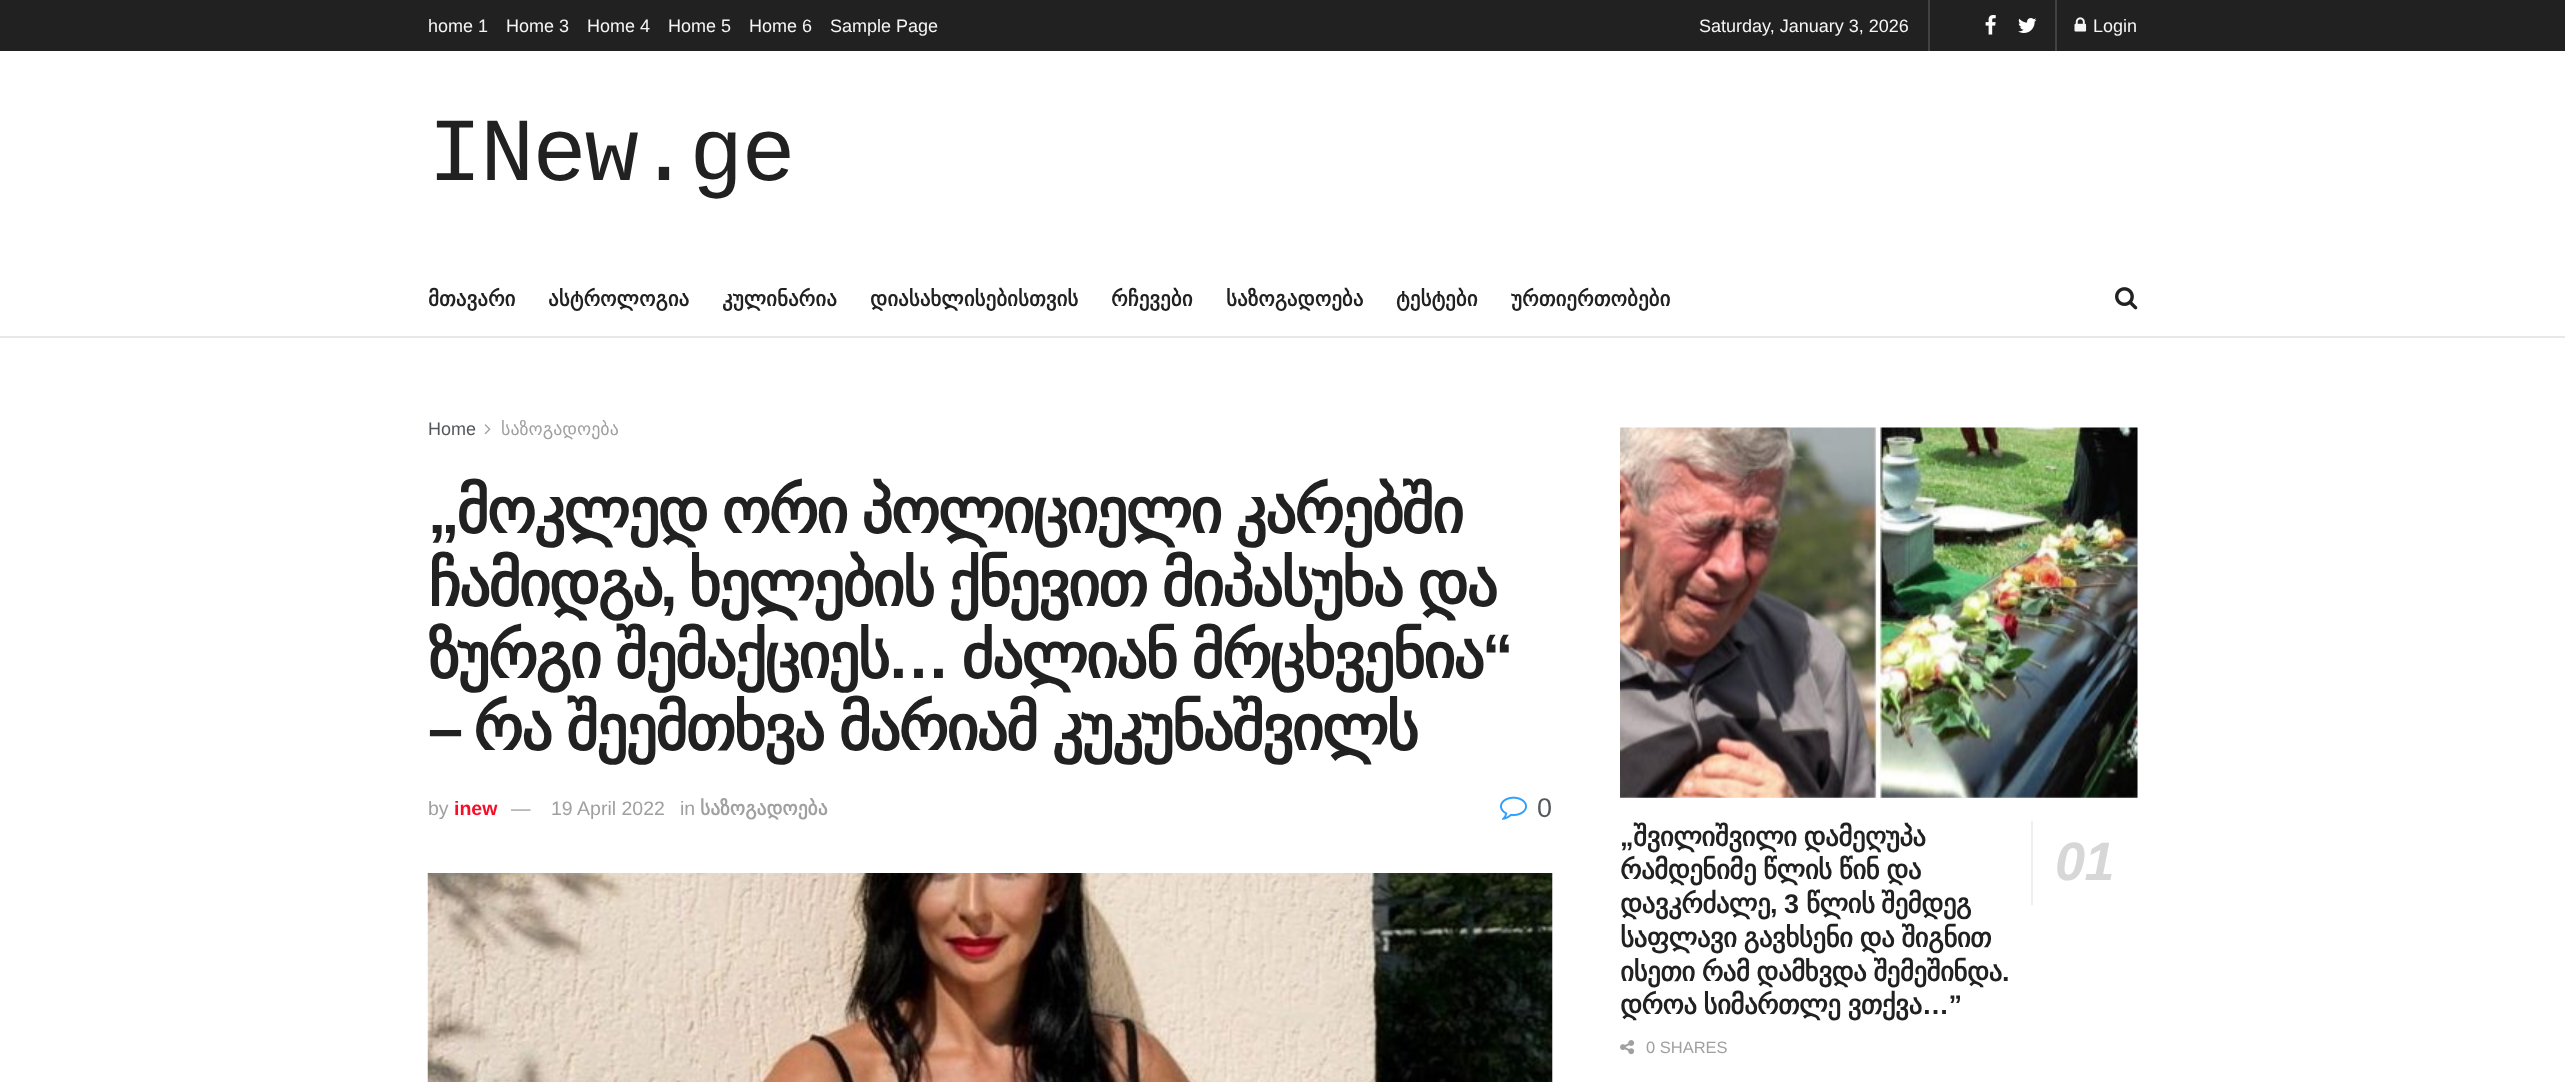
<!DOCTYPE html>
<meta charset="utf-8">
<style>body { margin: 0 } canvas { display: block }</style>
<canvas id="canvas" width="2565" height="1082"></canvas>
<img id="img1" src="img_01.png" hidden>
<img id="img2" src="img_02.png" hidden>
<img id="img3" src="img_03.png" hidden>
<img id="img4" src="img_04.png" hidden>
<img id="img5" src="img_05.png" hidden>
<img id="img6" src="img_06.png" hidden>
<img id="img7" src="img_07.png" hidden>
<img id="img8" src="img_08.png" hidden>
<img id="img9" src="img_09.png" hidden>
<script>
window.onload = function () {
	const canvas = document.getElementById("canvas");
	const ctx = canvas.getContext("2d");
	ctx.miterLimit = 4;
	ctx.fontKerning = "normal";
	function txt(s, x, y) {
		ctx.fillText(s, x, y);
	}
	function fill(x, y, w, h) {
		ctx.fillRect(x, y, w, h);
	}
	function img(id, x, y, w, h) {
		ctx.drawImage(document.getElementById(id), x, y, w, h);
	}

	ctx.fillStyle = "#FFFFFF";
	fill(0, 0, 2565, 1082);
	ctx.fillStyle = "#212121";
	fill(0, 0, 2565, 51);
	ctx.fillStyle = "#424242";
	fill(2055, 0, 2, 51);
	fill(1928, 0, 2, 51);
	img("img1", 1985, 15, 11, 20);
	img("img2", 2018, 18, 19, 15);
	img("img3", 2074, 17, 13, 15);
	ctx.fillStyle = "#E8E8E8";
	fill(0, 336, 2565, 2);
	img("img4", 2115, 287, 23, 23);
	img("img5", 484, 424, 7, 11);
	img("img6", 1500, 796, 27, 24);
	ctx.fillStyle = "#F7F7F7";
	fill(1552, 873, 1, 209);
	img("img7", 427, 873, 1126, 209);
	fill(1620, 428, 518, 370);
	img("img8", 1620, 427, 518, 371);
	ctx.fillStyle = "#EEEEEE";
	fill(2031, 821, 2, 84);
	img("img9", 1620, 1040, 15, 15);
	ctx.font = "18px Liberation Sans";
	ctx.fillStyle = "#F5F5F5";
	txt("home 1", 428, 32);
	txt("Home 3", 506, 32);
	txt("Home 4", 587, 32);
	txt("Home 5", 668, 32);
	txt("Home 6", 749, 32);
	txt("Sample Page", 830, 32);
	txt("Saturday, January 3, 2026", 1699, 32);
	txt("Login", 2093, 32);
	ctx.letterSpacing = "-1.75px";
	ctx.font = "90px Liberation Mono";
	ctx.fillStyle = "#212121";
	txt("INew.ge", 428, 180);
	ctx.letterSpacing = "0px";
	ctx.font = "bold 21px DejaVu Sans";
	txt("მთავარი", 428, 306);
	txt("ასტროლოგია", 548, 306);
	txt("კულინარია", 722, 306);
	txt("დიასახლისებისთვის", 870, 306);
	txt("რჩევები", 1111, 306);
	txt("საზოგადოება", 1226, 306);
	txt("ტესტები", 1396, 306);
	txt("ურთიერთობები", 1511, 306);
	ctx.font = "18px Liberation Sans";
	ctx.fillStyle = "#53585C";
	txt("Home", 428, 435);
	ctx.font = "18px DejaVu Sans";
	ctx.fillStyle = "#A0A0A0";
	txt("საზოგადოება", 501, 435);
	ctx.letterSpacing = "-2.5px";
	ctx.font = "bold 63px Liberation Sans";
	ctx.fillStyle = "#212121";
	txt("„", 428, 533);
	ctx.wordSpacing = "-2.5px";
	ctx.font = "bold 63px DejaVu Sans";
	txt("მოკლედ ორი პოლიციელი კარებში", 456, 533);
	ctx.wordSpacing = "0px";
	txt("ჩამიდგა", 428, 606);
	ctx.font = "bold 63px Liberation Sans";
	txt(",", 660, 606);
	ctx.wordSpacing = "-2px";
	ctx.font = "bold 63px DejaVu Sans";
	txt("ხელების ქნევით მიპასუხა და", 688, 606);
	txt("ზურგი შემაქციეს", 428, 678);
	txt("ძალიან მრცხვენია", 961, 678);
	ctx.wordSpacing = "0px";
	ctx.font = "bold 63px Liberation Sans";
	txt("“", 1482, 678);
	txt("…", 887, 678);
	txt("–", 428, 750);
	ctx.wordSpacing = "-2px";
	ctx.font = "bold 63px DejaVu Sans";
	txt("რა შეემთხვა მარიამ კუკუნაშვილს", 473, 750);
	ctx.letterSpacing = "0px";
	ctx.wordSpacing = "0px";
	ctx.font = "19.5px Liberation Sans";
	ctx.fillStyle = "#A0A0A0";
	txt("by", 428, 815);
	ctx.font = "bold 19.5px Liberation Sans";
	ctx.fillStyle = "#F70D28";
	txt("inew", 454, 815);
	ctx.font = "19.5px Liberation Sans";
	ctx.fillStyle = "#A0A0A0";
	txt("—", 511, 815);
	txt("19 April 2022", 551, 815);
	txt("in", 680, 815);
	ctx.font = "bold 19.5px DejaVu Sans";
	txt("საზოგადოება", 700, 815);
	ctx.font = "27px Liberation Sans";
	ctx.fillStyle = "#53585C";
	txt("0", 1537, 817);
	ctx.letterSpacing = "-0.55px";
	ctx.font = "bold 27px Liberation Sans";
	ctx.fillStyle = "#212121";
	txt("„", 1620, 846);
	ctx.wordSpacing = "-1px";
	ctx.font = "bold 27px DejaVu Sans";
	txt("შვილიშვილი დამეღუპა", 1633, 846);
	ctx.wordSpacing = "0px";
	ctx.font = "italic bold 54px Liberation Sans";
	ctx.fillStyle = "#D7D7D7";
	txt("01", 2055, 880);
	ctx.wordSpacing = "-1px";
	ctx.font = "bold 27px DejaVu Sans";
	ctx.fillStyle = "#212121";
	txt("რამდენიმე წლის წინ და", 1620, 879);
	ctx.wordSpacing = "0px";
	txt("დავკრძალე", 1620, 913);
	ctx.font = "bold 27px Liberation Sans";
	txt(", 3", 1770, 913);
	ctx.font = "bold 27px DejaVu Sans";
	txt("წლის", 1806, 913);
	txt("შემდეგ", 1881, 913);
	ctx.wordSpacing = "-1px";
	txt("საფლავი გავხსენი და შიგნით", 1620, 947);
	txt("ისეთი რამ დამხვდა შემეშინდა", 1620, 981);
	ctx.wordSpacing = "0px";
	ctx.font = "bold 27px Liberation Sans";
	txt(".", 2002, 981);
	ctx.wordSpacing = "-1px";
	ctx.font = "bold 27px DejaVu Sans";
	txt("დროა სიმართლე ვთქვა", 1620, 1014);
	ctx.wordSpacing = "0px";
	ctx.font = "bold 27px Liberation Sans";
	txt("…”", 1922, 1014);
	ctx.letterSpacing = "0px";
	ctx.font = "16.5px Liberation Sans";
	ctx.fillStyle = "#A0A0A0";
	txt("0 SHARES", 1646, 1053);
};
</script>
